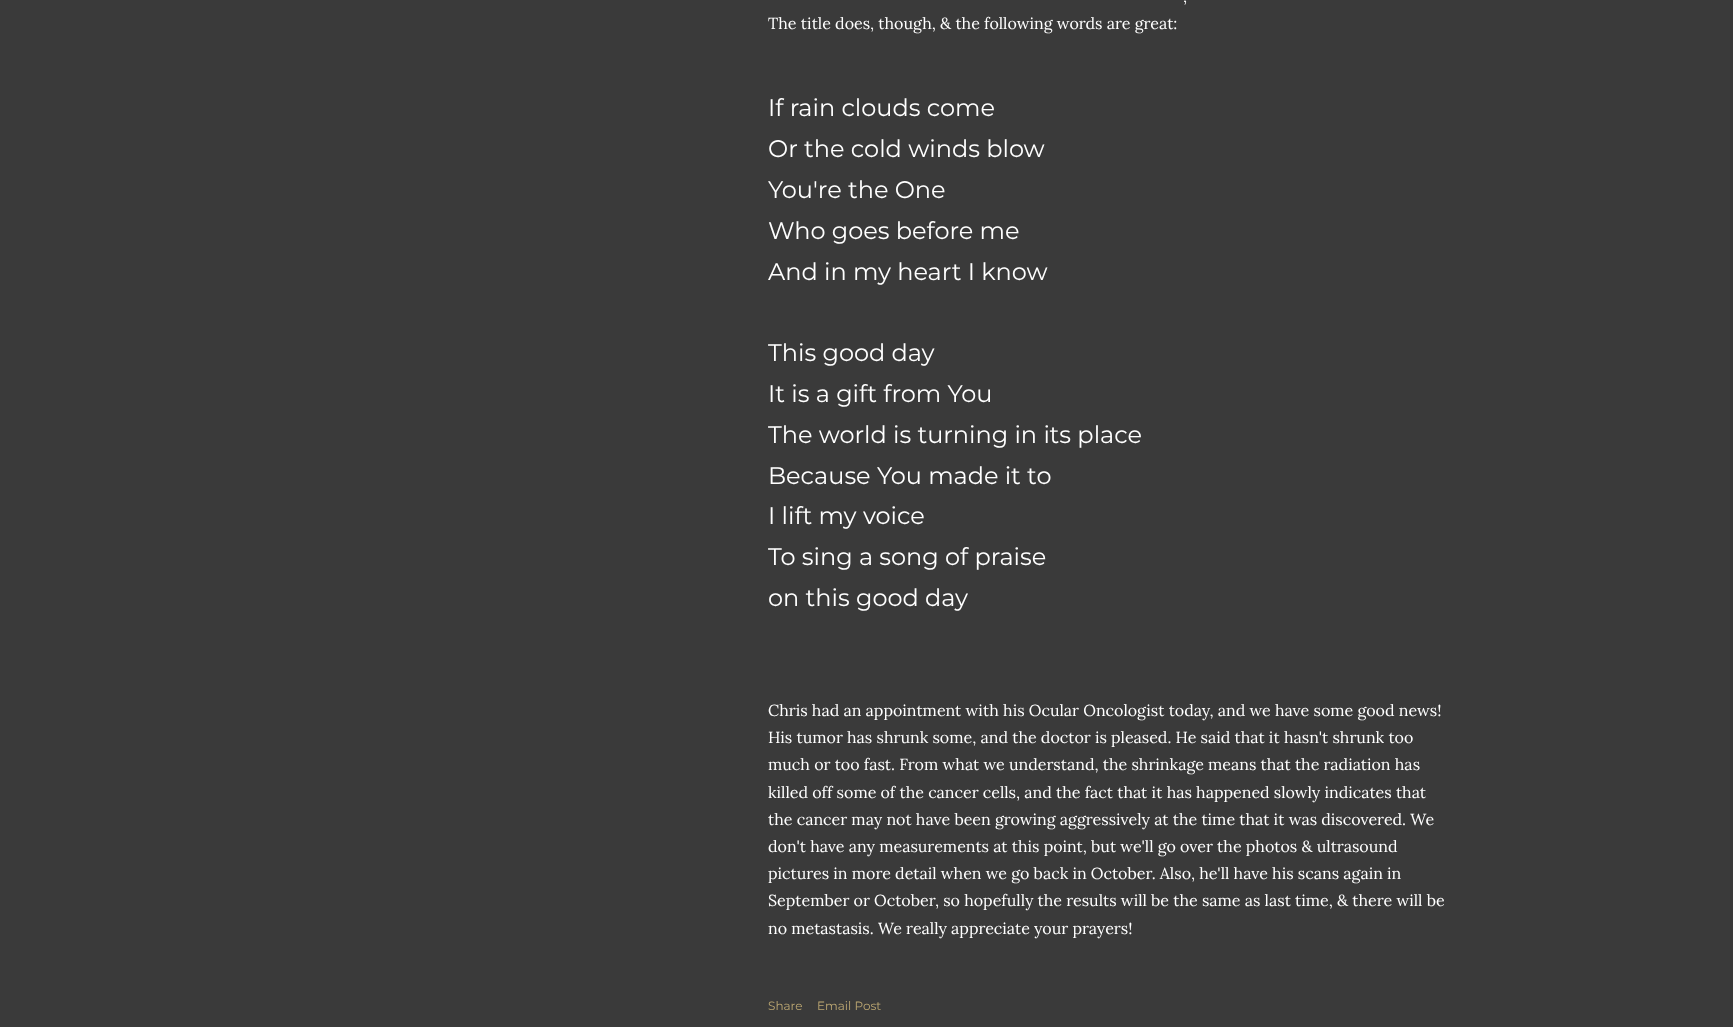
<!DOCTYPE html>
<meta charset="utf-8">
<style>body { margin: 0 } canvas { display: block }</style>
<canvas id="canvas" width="1733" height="1027"></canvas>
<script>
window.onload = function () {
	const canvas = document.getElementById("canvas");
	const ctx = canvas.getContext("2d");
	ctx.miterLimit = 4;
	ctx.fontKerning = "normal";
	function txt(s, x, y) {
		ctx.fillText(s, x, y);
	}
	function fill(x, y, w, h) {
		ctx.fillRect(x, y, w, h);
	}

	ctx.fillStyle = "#3A3A3A";
	fill(0, 0, 1733, 1027);
	ctx.font = "16px Lora";
	ctx.fillStyle = "#FFFFFF";
	txt(",", 1183, 2);
	txt("The title does, though, & the following words are great:", 768, 29);
	ctx.font = "24px Montserrat";
	txt("If rain clouds come", 768, 116);
	txt("Or the cold winds blow", 768, 157);
	txt("You're the One", 768, 198);
	txt("Who goes before me", 768, 239);
	txt("And in my heart I know", 768, 280);
	txt("This good day", 768, 361);
	txt("It is a gift from You", 768, 402);
	txt("The world is turning in its place", 768, 443);
	txt("Because You made it to", 768, 484);
	txt("I lift my voice", 768, 524);
	txt("To sing a song of praise", 768, 565);
	txt("on this good day", 768, 606);
	ctx.font = "16px Lora";
	txt("Chris had an appointment with his Ocular Oncologist today, and we have some good news!", 768, 716);
	txt("His tumor has shrunk some, and the doctor is pleased. He said that it hasn't shrunk too", 768, 743);
	txt("much or too fast. From what we understand, the shrinkage means that the radiation has", 768, 770);
	txt("killed off some of the cancer cells, and the fact that it has happened slowly indicates that", 768, 798);
	txt("the cancer may not have been growing aggressively at the time that it was discovered. We", 768, 825);
	txt("don't have any measurements at this point, but we'll go over the photos & ultrasound", 768, 852);
	txt("pictures in more detail when we go back in October. Also, he'll have his scans again in", 768, 879);
	txt("September or October, so hopefully the results will be the same as last time, & there will be", 768, 906);
	txt("no metastasis. We really appreciate your prayers!", 768, 934);
	ctx.font = "12px Montserrat";
	ctx.fillStyle = "#BCA772";
	txt("Share", 768, 1010);
	txt("Email Post", 817, 1010);
};
</script>
